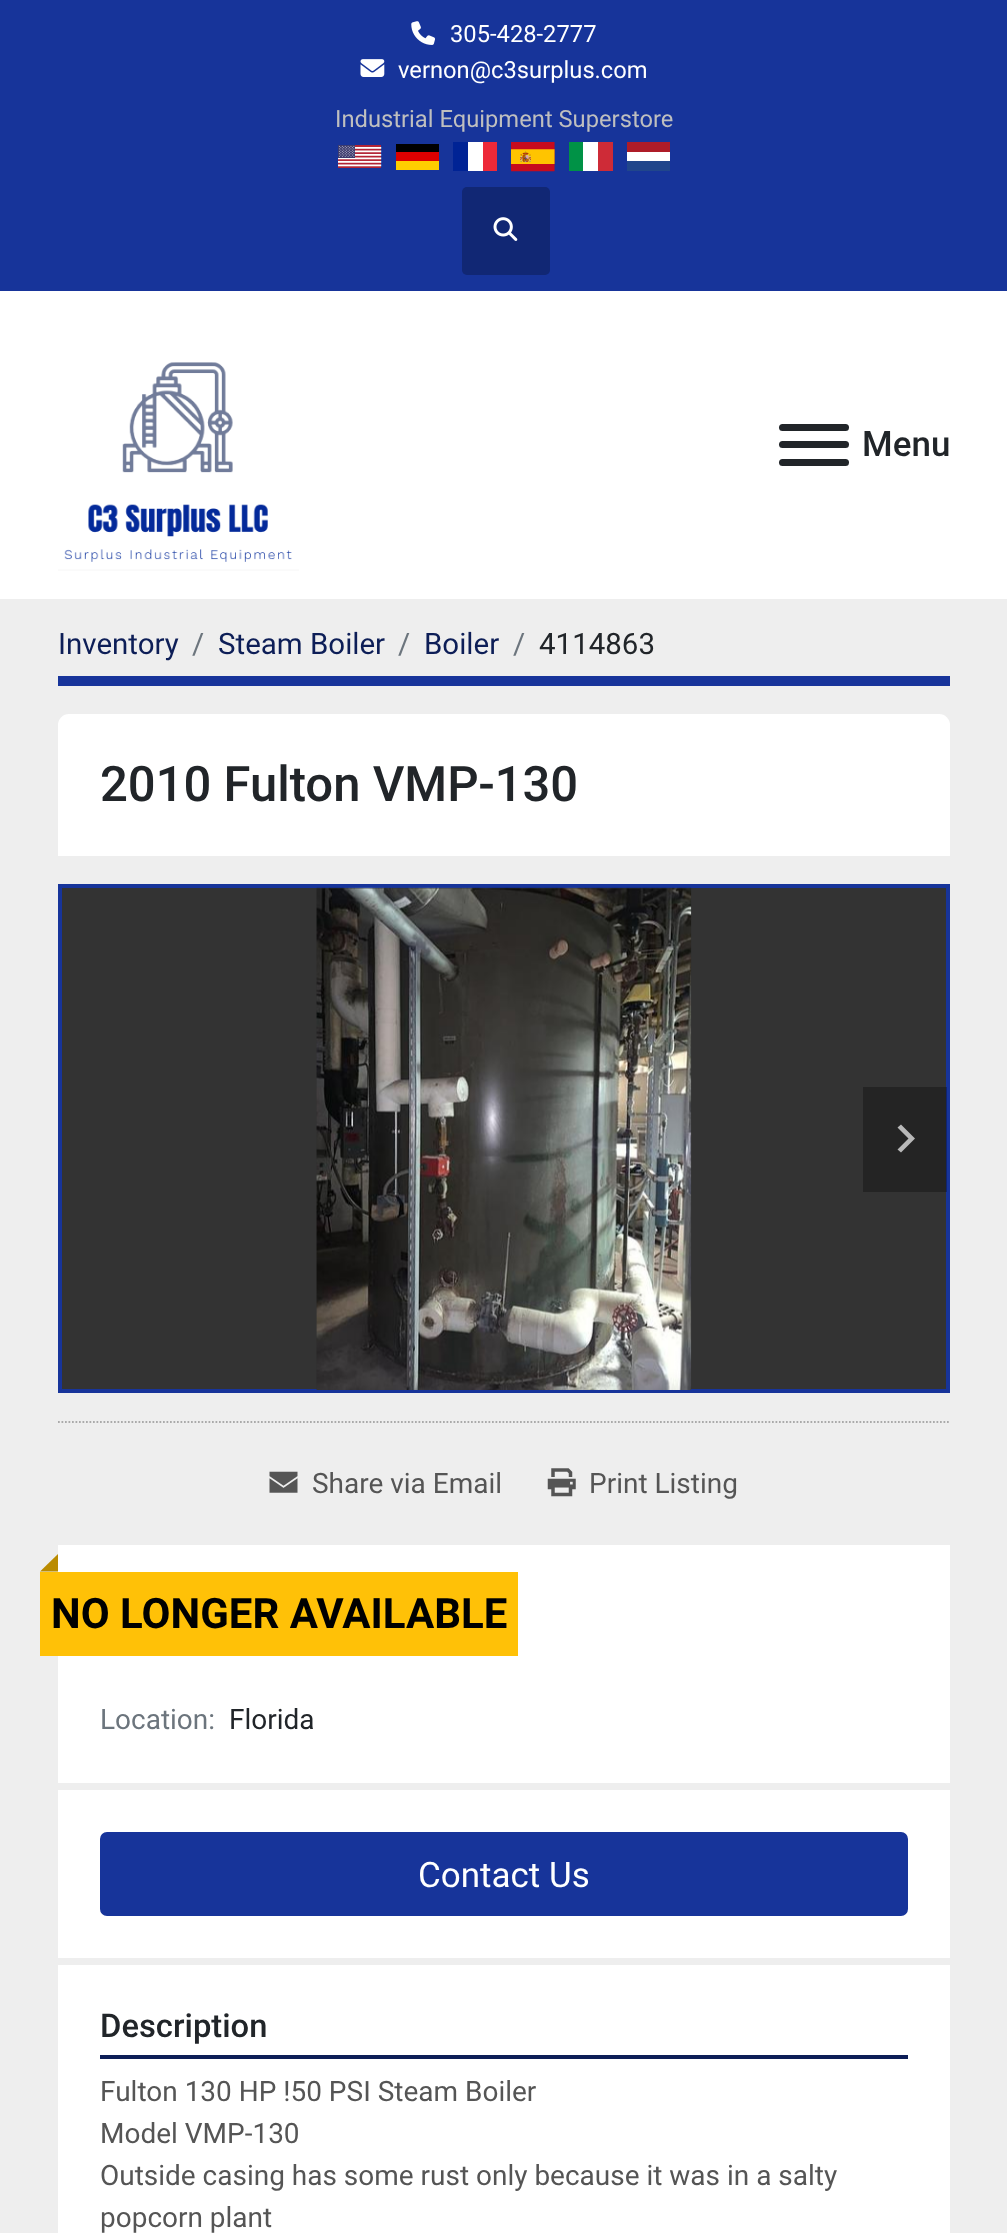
<!DOCTYPE html>
<meta charset="utf-8">
<style>body { margin: 0 } canvas { display: block }</style>
<canvas id="canvas" width="1007" height="2233"></canvas>
<img id="img1" src="img_01.png" hidden>
<img id="img2" src="img_02.png" hidden>
<img id="img3" src="img_03.png" hidden>
<img id="img4" src="img_04.png" hidden>
<img id="img5" src="img_05.png" hidden>
<img id="img6" src="img_06.png" hidden>
<img id="img7" src="img_07.png" hidden>
<img id="img8" src="img_08.png" hidden>
<img id="img9" src="img_09.png" hidden>
<script>
window.onload = function () {
	const canvas = document.getElementById("canvas");
	const ctx = canvas.getContext("2d");
	ctx.miterLimit = 4;
	ctx.fontKerning = "normal";
	function txt(s, x, y) {
		ctx.fillText(s, x, y);
	}
	function fill(x, y, w, h) {
		ctx.fillRect(x, y, w, h);
	}
	function round(x, y, w, h, r) {
		ctx.beginPath();
		ctx.roundRect(x, y, w, h, r);
		ctx.fill();
	}
	function img(id, x, y, w, h) {
		ctx.drawImage(document.getElementById(id), x, y, w, h);
	}

	ctx.fillStyle = "#EEEEEE";
	fill(0, 0, 1007, 2233);
	ctx.fillStyle = "#17349A";
	fill(0, 0, 1007, 291);
	img("img1", 411, 21, 24, 24);
	img("img2", 360, 59, 25, 18);
	img("img3", 338, 145, 44, 23);
	ctx.fillStyle = "#000000";
	fill(396, 144, 43, 8);
	ctx.fillStyle = "#DD0000";
	fill(396, 152, 43, 9);
	ctx.fillStyle = "#FFCE00";
	fill(396, 161, 43, 9);
	ctx.fillStyle = "#002395";
	fill(453, 142, 15, 29);
	ctx.fillStyle = "#FFFFFF";
	fill(468, 142, 15, 29);
	ctx.fillStyle = "#ED2939";
	fill(483, 142, 14, 29);
	img("img4", 511, 142, 44, 30);
	ctx.fillStyle = "#009246";
	fill(569, 142, 14, 29);
	ctx.fillStyle = "#FFFFFF";
	fill(583, 142, 15, 29);
	ctx.fillStyle = "#CE2B37";
	fill(598, 142, 15, 29);
	ctx.fillStyle = "#AE1C28";
	fill(627, 142, 43, 10);
	ctx.fillStyle = "#FFFFFF";
	fill(627, 152, 43, 9);
	ctx.fillStyle = "#21468B";
	fill(627, 161, 43, 10);
	ctx.fillStyle = "#112774";
	round(462, 187, 88, 88, 5);
	img("img5", 493, 217, 25, 24);
	ctx.fillStyle = "#FFFFFF";
	fill(0, 291, 1007, 308);
	img("img6", 58, 362, 241, 209);
	ctx.fillStyle = "#212529";
	round(779, 441, 70, 7, 3.5);
	round(779, 424, 70, 7, 3.5);
	round(779, 459, 70, 7, 3.5);
	ctx.fillStyle = "#17349A";
	fill(58, 676, 892, 10);
	ctx.fillStyle = "#FFFFFF";
	ctx.beginPath();
	ctx.roundRect(58, 714, 892, 142, [11, 11, 0, 0]);
	ctx.fill();
	ctx.fillStyle = "#333333";
	ctx.beginPath();
	ctx.rect(60, 886, 888, 505);
	ctx.fill();
	ctx.strokeStyle = "#17349A";
	ctx.lineWidth = 4;
	ctx.stroke();
	img("img7", 316, 887, 376, 503);
	ctx.fillStyle = "rgba(0, 0, 0, 0.29)";
	fill(863, 1087, 84, 105);
	ctx.fillStyle = "#B8B8B8";
	ctx.beginPath();
	ctx.moveTo(915, 1138.5);
	ctx.lineTo(901, 1152.5);
	ctx.lineTo(897.5, 1149.5);
	ctx.lineTo(908.5, 1138.5);
	ctx.lineTo(897.5, 1127.5);
	ctx.lineTo(901, 1124.5);
	ctx.closePath();
	ctx.fill();
	ctx.beginPath();
	ctx.moveTo(58, 1422);
	ctx.lineTo(950, 1422);
	ctx.strokeStyle = "#AAAAAA";
	ctx.lineWidth = 1.8;
	ctx.setLineDash([1.75, 1.75]);
	ctx.stroke();
	img("img8", 269, 1471, 29, 22);
	img("img9", 547, 1468, 29, 29);
	ctx.fillStyle = "#FFFFFF";
	fill(58, 1545, 892, 688);
	ctx.fillStyle = "#FFC107";
	fill(40, 1572, 478, 84);
	ctx.fillStyle = "#BA8B00";
	ctx.beginPath();
	ctx.moveTo(58, 1571.5);
	ctx.lineTo(40, 1571.5);
	ctx.lineTo(58, 1554);
	ctx.closePath();
	ctx.fill();
	ctx.fillStyle = "#EEEEEE";
	fill(58, 1783, 892, 7);
	fill(58, 1958, 892, 7);
	ctx.fillStyle = "#17349A";
	ctx.beginPath();
	ctx.roundRect(101, 1833, 806, 82, 6);
	ctx.fill();
	ctx.strokeStyle = "#17349A";
	ctx.lineWidth = 2;
	ctx.setLineDash([]);
	ctx.stroke();
	ctx.fillStyle = "#0D1E57";
	fill(100, 2055, 808, 4);
	ctx.font = "23.75px Roboto";
	ctx.fillStyle = "#FFFFFF";
	txt("305-428-2777", 450, 42);
	txt("vernon@c3surplus.com", 398, 78);
	ctx.fillStyle = "#BFBFBF";
	txt("Industrial Equipment Superstore", 335, 127);
	ctx.font = "500 35px Roboto";
	ctx.fillStyle = "#212529";
	txt("Menu", 862, 456);
	ctx.font = "29.5px Roboto";
	ctx.fillStyle = "#0D1E57";
	txt("Inventory", 58, 654);
	ctx.fillStyle = "#6C757D";
	txt("/", 192, 654);
	ctx.fillStyle = "#0D1E57";
	txt("Steam Boiler", 218, 654);
	ctx.fillStyle = "#6C757D";
	txt("/", 398, 654);
	ctx.fillStyle = "#0D1E57";
	txt("Boiler", 424, 654);
	ctx.fillStyle = "#6C757D";
	txt("/", 513, 654);
	ctx.fillStyle = "#212529";
	txt("4114863", 539, 654);
	ctx.font = "500 49px Roboto";
	txt("2010 Fulton VMP-130", 100, 801);
	ctx.font = "28px Roboto";
	ctx.fillStyle = "#555555";
	txt("Share via Email", 312, 1493);
	txt("Print Listing", 589, 1493);
	ctx.font = "bold 42px Roboto";
	ctx.fillStyle = "#000000";
	txt("NO LONGER AVAILABLE", 51, 1628);
	ctx.font = "28px Roboto";
	ctx.fillStyle = "#6C757D";
	txt("Location:", 100, 1729);
	ctx.fillStyle = "#212529";
	txt("Florida", 229, 1729);
	ctx.font = "35px Roboto";
	ctx.fillStyle = "#FFFFFF";
	txt("Contact Us", 418, 1887);
	ctx.font = "500 32.75px Roboto";
	ctx.fillStyle = "#212529";
	txt("Description", 100, 2037);
	ctx.font = "28px Roboto";
	ctx.fillStyle = "#555555";
	txt("Fulton 130 HP !50 PSI Steam Boiler", 100, 2101);
	txt("Model VMP-130", 100, 2143);
	txt("Outside casing has some rust only because it was in a salty", 100, 2185);
	txt("popcorn plant", 100, 2227);
};
</script>
